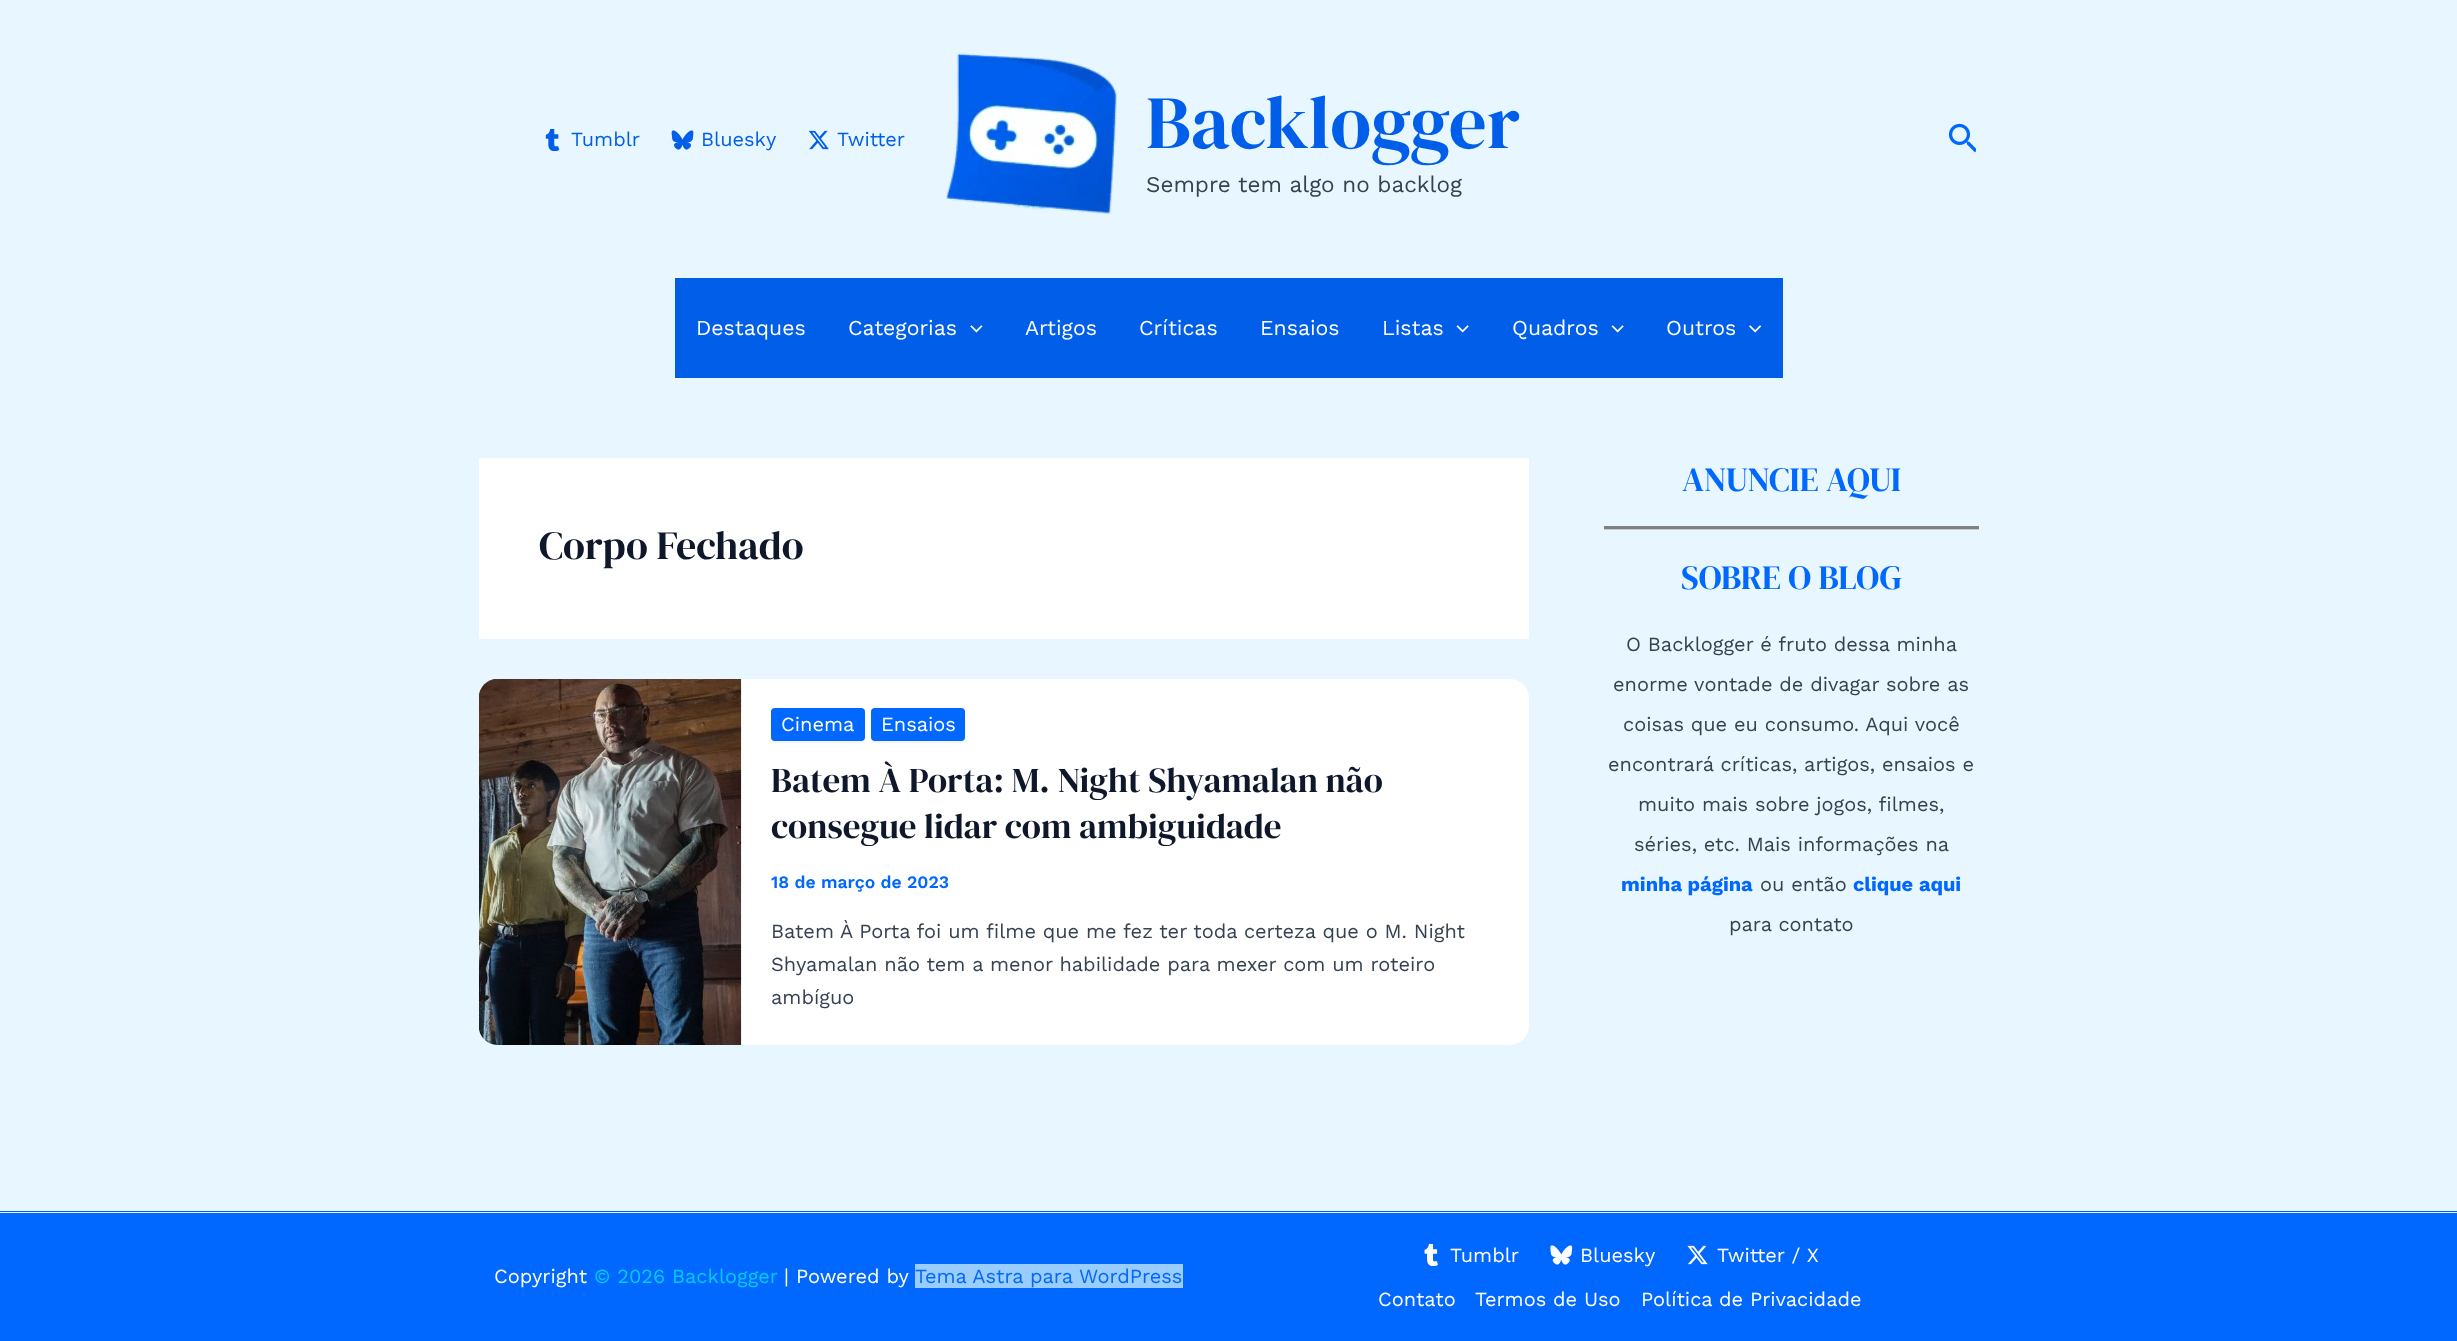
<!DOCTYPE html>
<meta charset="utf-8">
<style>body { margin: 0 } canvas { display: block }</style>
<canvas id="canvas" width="2457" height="1341"></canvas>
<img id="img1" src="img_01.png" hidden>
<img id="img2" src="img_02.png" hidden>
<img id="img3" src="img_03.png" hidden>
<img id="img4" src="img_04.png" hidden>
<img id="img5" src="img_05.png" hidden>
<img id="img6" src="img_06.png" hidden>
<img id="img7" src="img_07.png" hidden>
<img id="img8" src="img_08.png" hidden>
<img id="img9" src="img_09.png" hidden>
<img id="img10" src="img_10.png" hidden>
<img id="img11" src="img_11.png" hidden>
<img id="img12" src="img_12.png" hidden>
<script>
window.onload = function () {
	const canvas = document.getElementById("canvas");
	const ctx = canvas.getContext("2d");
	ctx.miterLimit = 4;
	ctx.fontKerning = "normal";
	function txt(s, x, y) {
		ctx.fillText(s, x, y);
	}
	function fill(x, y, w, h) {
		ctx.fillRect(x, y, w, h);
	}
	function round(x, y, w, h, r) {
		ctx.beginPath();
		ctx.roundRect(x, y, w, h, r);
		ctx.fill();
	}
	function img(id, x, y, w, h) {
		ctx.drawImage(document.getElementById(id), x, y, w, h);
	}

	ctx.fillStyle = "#E7F6FF";
	fill(0, 0, 2457, 1341);
	img("img1", 545, 129, 15, 22);
	img("img2", 671, 130, 23, 20);
	img("img3", 808, 130, 21, 20);
	img("img4", 946, 53, 171, 162);
	img("img5", 1948, 123, 28, 30);
	ctx.fillStyle = "#005EE9";
	fill(675, 278, 1108, 100);
	img("img6", 970, 325, 13, 8);
	img("img7", 1456, 325, 13, 8);
	img("img7", 1611, 325, 13, 8);
	img("img8", 1749, 325, 12, 8);
	ctx.fillStyle = "#FFFFFF";
	fill(479, 458, 1050, 181);
	round(479, 679, 1050, 366, 19);
	img("img9", 479, 679, 263, 366);
	ctx.fillStyle = "rgba(0, 0, 0, 0.05)";
	ctx.filter = "blur(1px)";
	ctx.beginPath();
	ctx.roundRect(771, 709, 94, 34, 4);
	ctx.fill();
	ctx.filter = "none";
	ctx.fillStyle = "#0067FF";
	round(771, 708, 94, 33, 4);
	ctx.fillStyle = "rgba(0, 0, 0, 0.05)";
	ctx.filter = "blur(1px)";
	ctx.beginPath();
	ctx.roundRect(871, 709, 94, 34, 4);
	ctx.fill();
	ctx.filter = "none";
	ctx.fillStyle = "#0067FF";
	round(871, 708, 94, 33, 4);
	ctx.fillStyle = "#CCCCCC";
	fill(1604, 529, 375, 1);
	ctx.fillStyle = "#808080";
	fill(1604, 526, 375, 3);
	ctx.fillStyle = "#0067FF";
	fill(0, 1213, 2457, 128);
	ctx.fillStyle = "#005EE9";
	fill(0, 1211, 2457, 1);
	ctx.fillStyle = "#99CCFF";
	fill(915, 1264, 268, 24);
	img("img10", 1424, 1244, 14, 22);
	img("img11", 1550, 1245, 23, 20);
	img("img12", 1687, 1245, 21, 20);
	ctx.font = "20px Work Sans";
	ctx.fillStyle = "#005EE9";
	txt("Tumblr", 571, 146);
	txt("Bluesky", 701, 146);
	txt("Twitter", 837, 146);
	ctx.font = "75px DM Serif Display";
	txt("Backlogger", 1146, 148);
	ctx.font = "22.5px Work Sans";
	ctx.fillStyle = "#364151";
	txt("Sempre tem algo no backlog", 1146, 192);
	ctx.font = "21.25px Work Sans";
	ctx.fillStyle = "#FFFFFF";
	txt("Destaques", 696, 335);
	txt("Categorias", 848, 335);
	txt("Artigos", 1025, 335);
	txt("Críticas", 1139, 335);
	txt("Ensaios", 1260, 335);
	txt("Listas", 1382, 335);
	txt("Quadros", 1512, 335);
	txt("Outros", 1666, 335);
	ctx.font = "40px DM Serif Display";
	ctx.fillStyle = "#0F172A";
	txt("Corpo Fechado", 539, 559);
	ctx.font = "20px Work Sans";
	ctx.fillStyle = "#FFFFFF";
	txt("Cinema", 781, 731);
	txt("Ensaios", 881, 731);
	ctx.font = "35px DM Serif Display";
	ctx.fillStyle = "#0F172A";
	txt("Batem À Porta: M. Night Shyamalan não", 771, 792);
	txt("consegue lidar com ambiguidade", 771, 838);
	ctx.font = "600 17.5px Work Sans";
	ctx.fillStyle = "#0067FF";
	txt("18 de março de 2023", 771, 888);
	ctx.font = "20px Work Sans";
	ctx.fillStyle = "#364151";
	txt("Batem À Porta foi um filme que me fez ter toda certeza que o M. Night", 771, 938);
	txt("Shyamalan não tem a menor habilidade para mexer com um roteiro", 771, 971);
	txt("ambíguo", 771, 1004);
	ctx.font = "34px DM Serif Display";
	ctx.fillStyle = "#0067FF";
	txt("ANUNCIE AQUI", 1682, 491);
	txt("SOBRE O BLOG", 1681, 589);
	ctx.font = "20px Work Sans";
	ctx.fillStyle = "#364151";
	txt("O Backlogger é fruto dessa minha", 1626, 651);
	txt("enorme vontade de divagar sobre as", 1613, 691);
	txt("coisas que eu consumo. Aqui você", 1623, 731);
	txt("encontrará críticas, artigos, ensaios e", 1608, 771);
	txt("muito mais sobre jogos, filmes,", 1638, 811);
	txt("séries, etc. Mais informações na", 1634, 851);
	ctx.font = "bold 20px Work Sans";
	ctx.fillStyle = "#0067FF";
	txt("minha página", 1621, 891);
	ctx.font = "20px Work Sans";
	ctx.fillStyle = "#364151";
	txt("ou então", 1760, 891);
	ctx.font = "bold 20px Work Sans";
	ctx.fillStyle = "#0067FF";
	txt("clique aqui", 1853, 891);
	ctx.font = "20px Work Sans";
	ctx.fillStyle = "#364151";
	txt("para contato", 1729, 931);
	ctx.fillStyle = "#FFFFFF";
	txt("Copyright", 494, 1283);
	ctx.fillStyle = "#00CCFF";
	txt("© 2026 Backlogger", 594, 1283);
	ctx.fillStyle = "#FFFFFF";
	txt("|", 784, 1283);
	txt("Powered by", 796, 1283);
	ctx.fillStyle = "#0067FF";
	txt("Tema Astra para WordPress", 915, 1283);
	ctx.fillStyle = "#FFFFFF";
	txt("Tumblr", 1450, 1262);
	txt("Bluesky", 1580, 1262);
	txt("Twitter / X", 1717, 1262);
	txt("Contato", 1378, 1306);
	txt("Termos de Uso", 1475, 1306);
	txt("Política de Privacidade", 1641, 1306);
};
</script>
